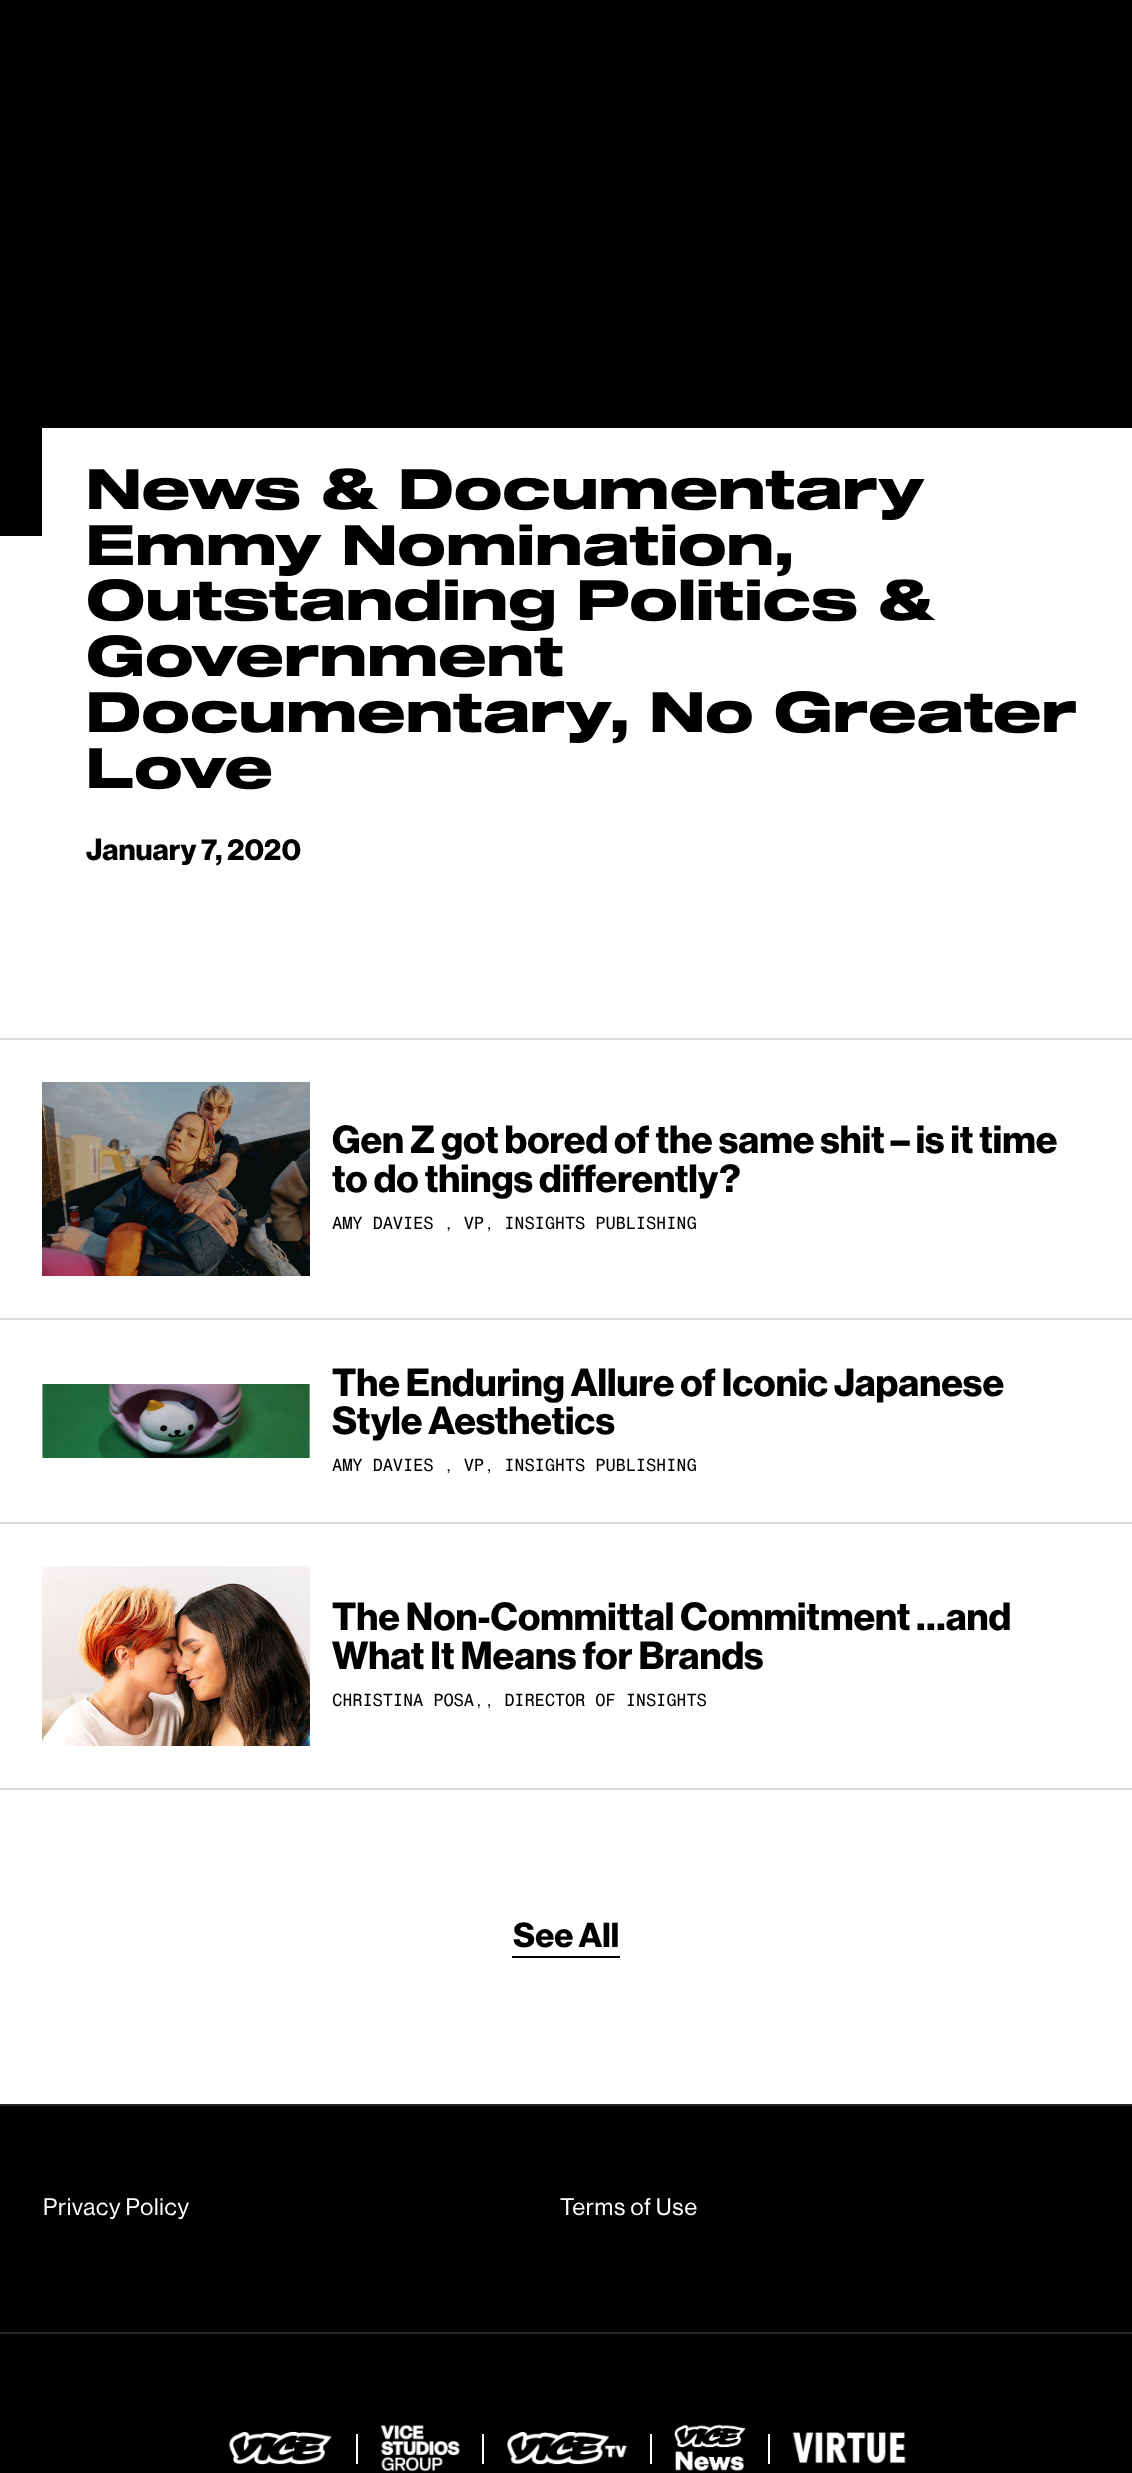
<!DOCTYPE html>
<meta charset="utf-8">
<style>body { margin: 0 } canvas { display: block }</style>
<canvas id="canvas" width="1132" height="2473"></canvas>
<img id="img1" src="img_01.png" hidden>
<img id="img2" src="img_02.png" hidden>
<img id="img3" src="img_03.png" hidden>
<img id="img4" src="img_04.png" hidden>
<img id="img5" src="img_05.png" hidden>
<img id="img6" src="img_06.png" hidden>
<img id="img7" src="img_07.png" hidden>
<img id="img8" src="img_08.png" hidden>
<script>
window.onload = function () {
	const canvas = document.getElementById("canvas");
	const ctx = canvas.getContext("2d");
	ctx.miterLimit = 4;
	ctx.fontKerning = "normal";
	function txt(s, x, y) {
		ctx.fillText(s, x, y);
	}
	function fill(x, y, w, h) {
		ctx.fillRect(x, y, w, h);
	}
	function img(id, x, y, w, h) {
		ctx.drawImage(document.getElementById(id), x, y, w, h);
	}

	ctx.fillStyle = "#FFFFFF";
	fill(0, 0, 1132, 2473);
	ctx.fillStyle = "#000000";
	fill(0, 0, 1132, 536);
	ctx.fillStyle = "#FFFFFF";
	fill(42, 428, 1090, 108);
	ctx.fillStyle = "#D9D9D9";
	fill(0, 1038, 1132, 2);
	img("img1", 42, 1082, 268, 194);
	fill(0, 1318, 1132, 2);
	img("img2", 42, 1384, 268, 74);
	fill(0, 1522, 1132, 2);
	img("img3", 42, 1566, 268, 180);
	fill(0, 1788, 1132, 2);
	ctx.fillStyle = "#000000";
	fill(512, 1956, 108, 2);
	fill(0, 2106, 1132, 226);
	ctx.fillStyle = "#262626";
	fill(0, 2104, 1132, 2);
	ctx.fillStyle = "#000000";
	fill(0, 2334, 1132, 139);
	ctx.fillStyle = "#262626";
	fill(0, 2332, 1132, 2);
	img("img4", 228, 2431, 104, 34);
	ctx.fillStyle = "#FFFFFF";
	fill(356, 2434, 2, 30);
	img("img5", 380, 2424, 80, 48);
	fill(482, 2434, 2, 30);
	img("img6", 506, 2432, 121, 33);
	fill(650, 2434, 2, 30);
	img("img7", 674, 2424, 72, 47);
	fill(768, 2434, 2, 30);
	img("img8", 792, 2432, 114, 32);
	ctx.font = "900 55.75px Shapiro";
	ctx.fillStyle = "#000000";
	txt("News & Documentary", 86, 509);
	txt("Emmy Nomination,", 86, 565);
	txt("Outstanding Politics &", 86, 620);
	txt("Government", 86, 676);
	txt("Documentary, No Greater", 86, 732);
	txt("Love", 86, 788);
	ctx.font = "bold 30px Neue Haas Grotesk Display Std";
	txt("January 7, 2020", 86, 860);
	ctx.font = "bold 38.6px Neue Haas Grotesk Display Std";
	txt("Gen Z got bored of the same shit – is it time", 332, 1153);
	txt("to do things differently?", 332, 1192);
	ctx.letterSpacing = "-0.15px";
	ctx.font = "17.15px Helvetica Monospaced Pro";
	txt("AMY DAVIES , VP, INSIGHTS PUBLISHING", 332, 1229);
	ctx.letterSpacing = "0px";
	ctx.font = "bold 38.6px Neue Haas Grotesk Display Std";
	txt("The Enduring Allure of Iconic Japanese", 332, 1396);
	txt("Style Aesthetics", 332, 1434);
	ctx.letterSpacing = "-0.15px";
	ctx.font = "17.15px Helvetica Monospaced Pro";
	txt("AMY DAVIES , VP, INSIGHTS PUBLISHING", 332, 1471);
	ctx.letterSpacing = "0px";
	ctx.font = "bold 38.6px Neue Haas Grotesk Display Std";
	txt("The Non-Committal Commitment …and", 332, 1630);
	txt("What It Means for Brands", 332, 1669);
	ctx.letterSpacing = "-0.15px";
	ctx.font = "17.15px Helvetica Monospaced Pro";
	txt("CHRISTINA POSA,, DIRECTOR OF INSIGHTS", 332, 1706);
	ctx.letterSpacing = "0px";
	ctx.font = "bold 34px Neue Haas Grotesk Display Std";
	txt("See All", 513, 1947);
	ctx.letterSpacing = "0.75px";
	ctx.font = "23.5px Neue Haas Grotesk Display Std";
	ctx.fillStyle = "#FFFFFF";
	txt("Privacy Policy", 43, 2215);
	txt("Terms of Use", 560, 2215);
};
</script>
